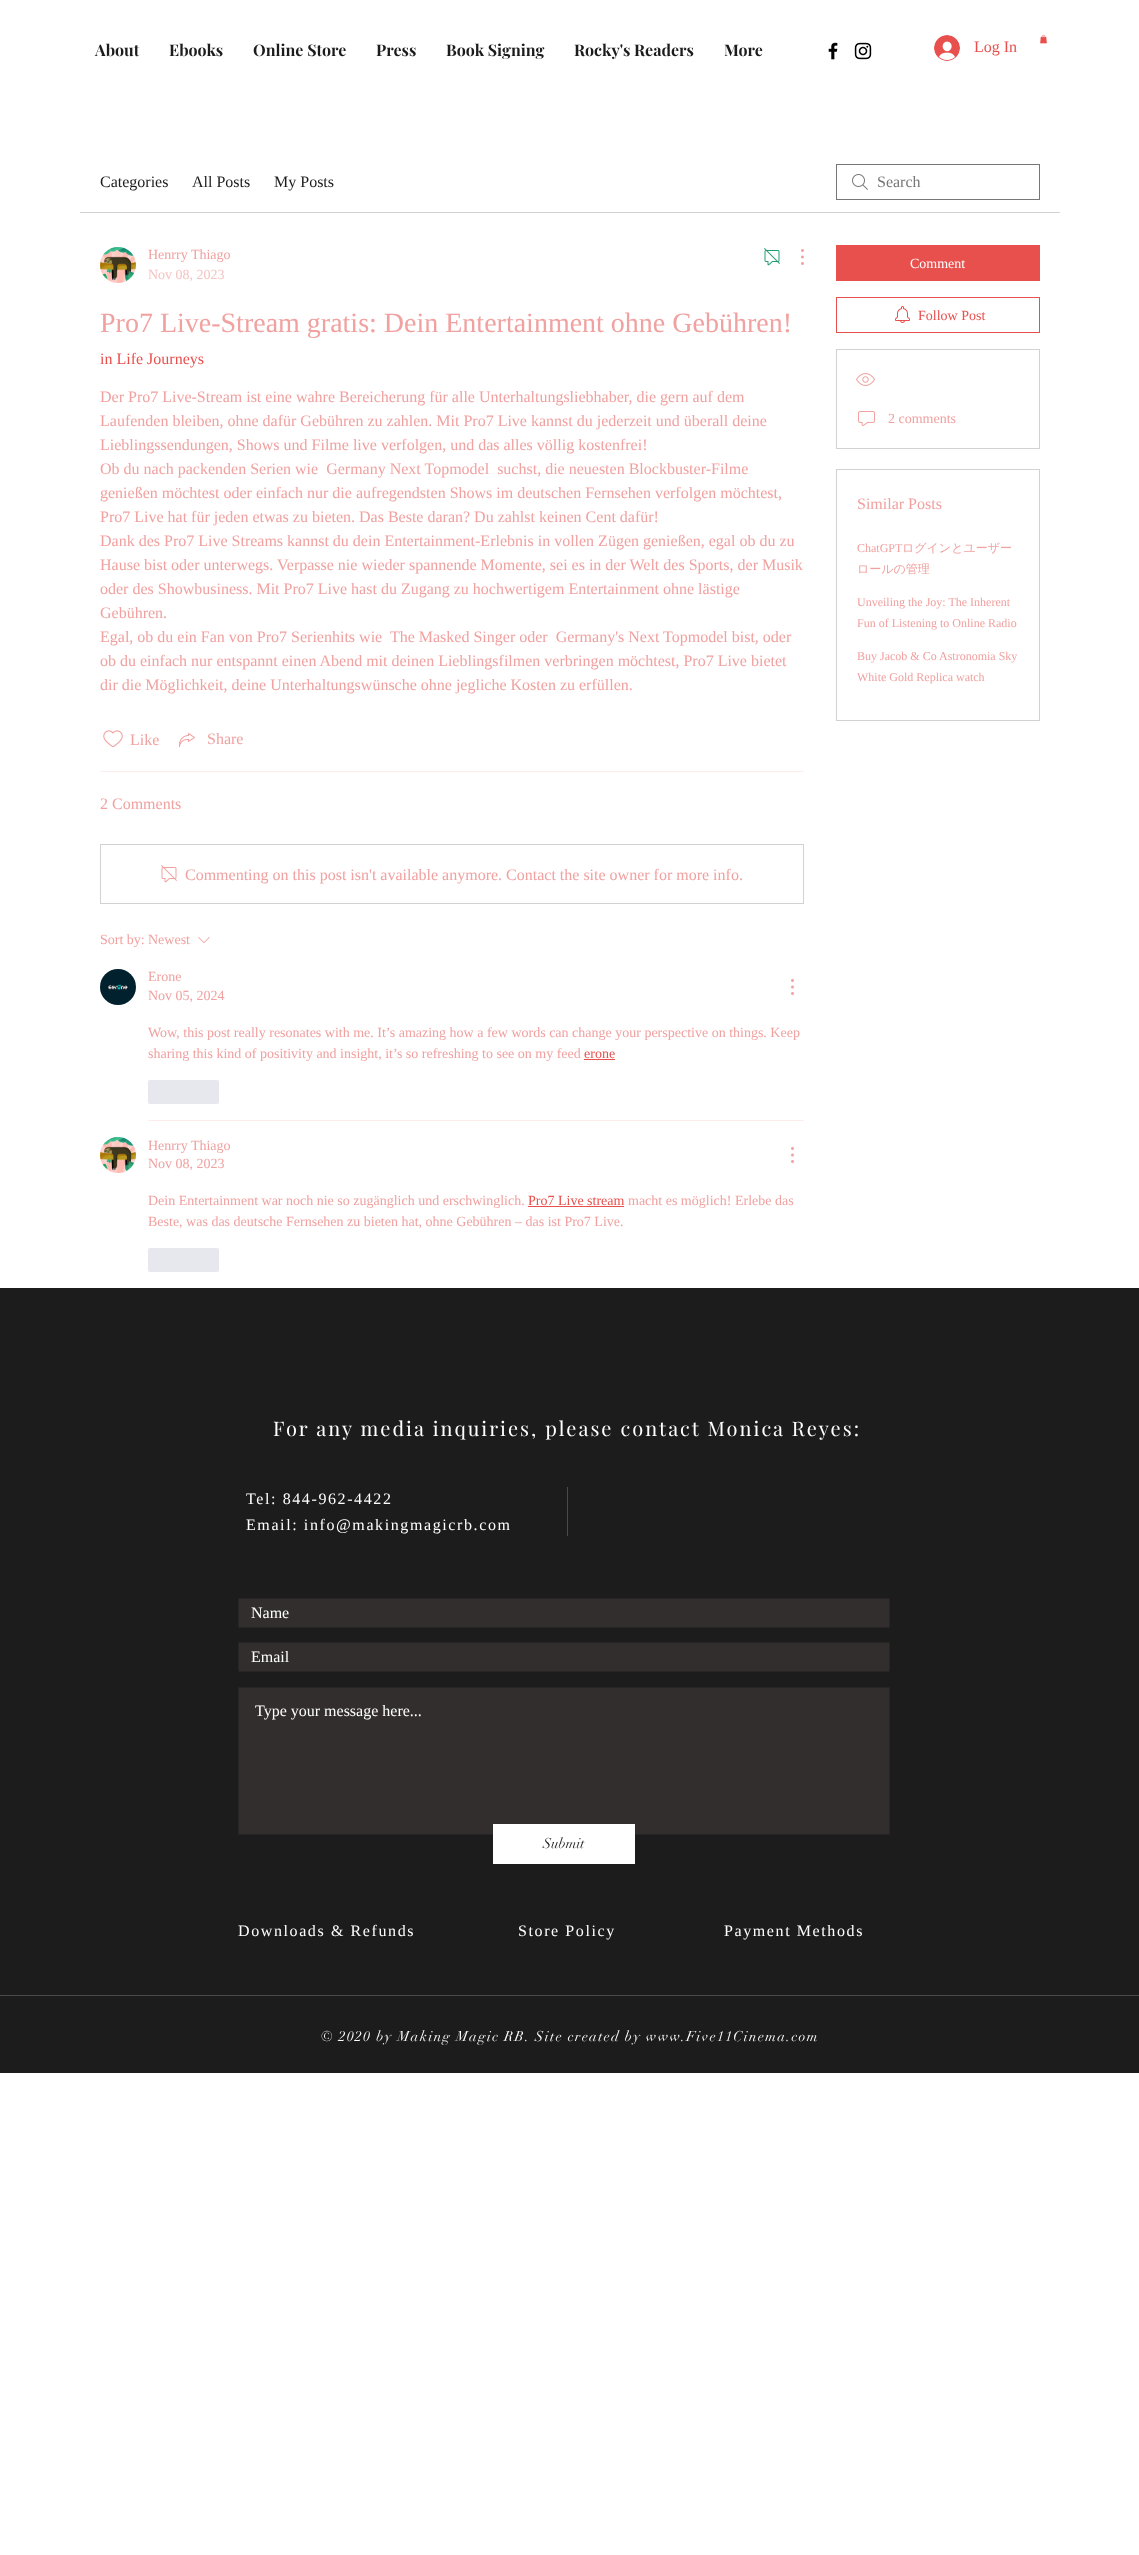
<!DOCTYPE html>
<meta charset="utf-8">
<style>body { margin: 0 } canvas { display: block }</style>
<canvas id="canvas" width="1139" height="2555"></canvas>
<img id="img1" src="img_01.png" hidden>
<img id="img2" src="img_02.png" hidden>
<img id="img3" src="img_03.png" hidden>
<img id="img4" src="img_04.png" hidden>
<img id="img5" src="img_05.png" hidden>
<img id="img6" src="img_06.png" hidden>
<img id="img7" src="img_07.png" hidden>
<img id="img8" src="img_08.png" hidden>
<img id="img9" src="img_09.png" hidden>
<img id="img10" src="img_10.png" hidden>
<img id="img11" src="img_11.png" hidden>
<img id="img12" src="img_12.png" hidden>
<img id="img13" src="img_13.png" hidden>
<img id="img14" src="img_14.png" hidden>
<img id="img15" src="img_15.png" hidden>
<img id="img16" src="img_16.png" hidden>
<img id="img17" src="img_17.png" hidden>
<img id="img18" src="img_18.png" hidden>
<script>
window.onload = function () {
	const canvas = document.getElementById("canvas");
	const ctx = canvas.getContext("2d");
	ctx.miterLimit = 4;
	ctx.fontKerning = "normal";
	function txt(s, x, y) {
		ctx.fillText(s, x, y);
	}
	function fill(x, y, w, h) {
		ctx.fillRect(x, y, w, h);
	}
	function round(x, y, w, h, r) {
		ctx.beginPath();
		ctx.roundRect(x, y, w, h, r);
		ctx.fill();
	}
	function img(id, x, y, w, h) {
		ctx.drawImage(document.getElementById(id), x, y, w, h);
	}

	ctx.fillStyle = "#FFFFFF";
	fill(0, 0, 1139, 2555);
	img("img1", 1040, 35, 7, 9);
	img("img2", 828, 42, 10, 18);
	img("img3", 854, 42, 18, 18);
	img("img4", 934, 35, 26, 26);
	ctx.fillStyle = "#D2D2D2";
	fill(80, 212, 980, 1);
	img("img5", 852, 174, 16, 16);
	ctx.strokeStyle = "#777777";
	ctx.strokeRect(836.5, 164.5, 203, 35);
	img("img6", 100, 247, 36, 36);
	img("img7", 764, 248, 16, 18);
	img("img8", 801, 249, 3, 16);
	img("img9", 103, 730, 20, 17);
	img("img10", 179, 733, 16, 14);
	ctx.fillStyle = "#FCECEC";
	fill(100, 771, 704, 1);
	ctx.strokeStyle = "#D2D2D2";
	ctx.strokeRect(100.5, 844.5, 703, 59);
	img("img11", 161, 865, 16, 18);
	img("img12", 198, 937, 12, 7);
	img("img13", 100, 969, 36, 36);
	img("img14", 791, 979, 3, 16);
	ctx.fillStyle = "#E8504D";
	fill(584, 1059, 31, 1);
	ctx.fillStyle = "#E7E8ED";
	round(148, 1080, 71, 24, 2);
	ctx.fillStyle = "#FCECEC";
	fill(148, 1120, 656, 1);
	img("img15", 100, 1137, 36, 36);
	img("img14", 791, 1147, 3, 16);
	ctx.fillStyle = "#E8504D";
	fill(528, 1206, 96, 1);
	ctx.fillStyle = "#E7E8ED";
	round(148, 1248, 71, 24, 2);
	ctx.fillStyle = "#E8504D";
	fill(836, 245, 204, 36);
	ctx.strokeStyle = "#E8504D";
	ctx.strokeRect(836.5, 297.5, 203, 35);
	img("img16", 895, 306, 15, 17);
	ctx.strokeStyle = "#D2D2D2";
	ctx.strokeRect(836.5, 349.5, 203, 99);
	img("img17", 856, 373, 19, 13);
	img("img18", 858, 411, 17, 15);
	ctx.strokeRect(836.5, 469.5, 203, 251);
	ctx.fillStyle = "#1C1C1C";
	fill(0, 1288, 1139, 785);
	ctx.fillStyle = "#494949";
	fill(567, 1487, 1, 49);
	ctx.fillStyle = "#322E2D";
	ctx.beginPath();
	ctx.rect(238.5, 1598.5, 651, 29);
	ctx.fill();
	ctx.strokeStyle = "#262424";
	ctx.stroke();
	ctx.beginPath();
	ctx.rect(238.5, 1642.5, 651, 29);
	ctx.fill();
	ctx.stroke();
	ctx.beginPath();
	ctx.rect(238.5, 1687.5, 651, 147);
	ctx.fill();
	ctx.stroke();
	ctx.fillStyle = "#FFFFFF";
	fill(493, 1824, 142, 40);
	ctx.fillStyle = "#494949";
	fill(0, 1995, 1139, 1);
	ctx.font = "bold 16px Playfair Display";
	ctx.fillStyle = "#1C1C1C";
	txt("About", 95, 56);
	txt("Ebooks", 169, 56);
	txt("Online Store", 253, 56);
	txt("Press", 376, 56);
	txt("Book Signing", 446, 56);
	txt("Rocky's Readers", 574, 56);
	txt("More", 724, 56);
	ctx.font = "16px Liberation Serif";
	ctx.fillStyle = "#E8504D";
	txt("Log In", 974, 52);
	ctx.fillStyle = "#1C1C1C";
	txt("Categories", 100, 187);
	txt("All Posts", 192, 187);
	txt("My Posts", 274, 187);
	ctx.fillStyle = "#777777";
	txt("Search", 877, 187);
	ctx.font = "14px Liberation Serif";
	ctx.fillStyle = "#F0A1A0";
	txt("Henrry Thiago", 148, 259);
	ctx.fillStyle = "#F5C3C2";
	txt("Nov 08, 2023", 148, 279);
	ctx.font = "28px Liberation Serif";
	ctx.fillStyle = "#F0A1A0";
	txt("Pro7 Live-Stream gratis: Dein Entertainment ohne Gebühren!", 100, 332);
	ctx.font = "16px Liberation Serif";
	ctx.fillStyle = "#E8504D";
	txt("in Life Journeys", 100, 364);
	ctx.fillStyle = "#F0A1A0";
	txt("Der Pro7 Live-Stream ist eine wahre Bereicherung für alle Unterhaltungsliebhaber, die gern auf dem", 100, 402);
	txt("Laufenden bleiben, ohne dafür Gebühren zu zahlen. Mit Pro7 Live kannst du jederzeit und überall deine", 100, 426);
	txt("Lieblingssendungen, Shows und Filme live verfolgen, und das alles völlig kostenfrei!", 100, 450);
	txt("Ob du nach packenden Serien wie  Germany Next Topmodel  suchst, die neuesten Blockbuster-Filme", 100, 474);
	txt("genießen möchtest oder einfach nur die aufregendsten Shows im deutschen Fernsehen verfolgen möchtest,", 100, 498);
	txt("Pro7 Live hat für jeden etwas zu bieten. Das Beste daran? Du zahlst keinen Cent dafür!", 100, 522);
	txt("Dank des Pro7 Live Streams kannst du dein Entertainment-Erlebnis in vollen Zügen genießen, egal ob du zu", 100, 546);
	txt("Hause bist oder unterwegs. Verpasse nie wieder spannende Momente, sei es in der Welt des Sports, der Musik", 100, 570);
	txt("oder des Showbusiness. Mit Pro7 Live hast du Zugang zu hochwertigem Entertainment ohne lästige", 100, 594);
	txt("Gebühren.", 100, 618);
	txt("Egal, ob du ein Fan von Pro7 Serienhits wie  The Masked Singer oder  Germany's Next Topmodel bist, oder", 100, 642);
	txt("ob du einfach nur entspannt einen Abend mit deinen Lieblingsfilmen verbringen möchtest, Pro7 Live bietet", 100, 666);
	txt("dir die Möglichkeit, deine Unterhaltungswünsche ohne jegliche Kosten zu erfüllen.", 100, 690);
	txt("Like", 130, 745);
	txt("Share", 207, 744);
	txt("2 Comments", 100, 809);
	txt("Commenting on this post isn't available anymore. Contact the site owner for more info.", 185, 880);
	ctx.font = "14px Liberation Serif";
	txt("Sort by:", 100, 944);
	txt("Newest", 148, 944);
	txt("Erone", 148, 981);
	txt("Nov 05, 2024", 148, 1000);
	txt("Wow, this post really resonates with me. It’s amazing how a few words can change your perspective on things. Keep", 148, 1037);
	txt("sharing this kind of positivity and insight, it’s so refreshing to see on my feed", 148, 1058);
	ctx.fillStyle = "#E8504D";
	txt("erone", 584, 1058);
	ctx.fillStyle = "#F0A1A0";
	txt("Henrry Thiago", 148, 1150);
	txt("Nov 08, 2023", 148, 1168);
	txt("Dein Entertainment war noch nie so zugänglich und erschwinglich.", 148, 1205);
	ctx.fillStyle = "#E8504D";
	txt("Pro7 Live stream", 528, 1205);
	ctx.fillStyle = "#F0A1A0";
	txt("macht es möglich! Erlebe das", 628, 1205);
	txt("Beste, was das deutsche Fernsehen zu bieten hat, ohne Gebühren – das ist Pro7 Live.", 148, 1226);
	ctx.fillStyle = "#FFFFFF";
	txt("Comment", 910, 268);
	ctx.fillStyle = "#E8504D";
	txt("Follow Post", 918, 320);
	ctx.fillStyle = "#F0A1A0";
	txt("2 comments", 888, 423);
	ctx.font = "16px Liberation Serif";
	txt("Similar Posts", 857, 509);
	ctx.font = "12px Liberation Serif";
	txt("ChatGPT", 857, 552);
	ctx.font = "500 12px WenQuanYi Zen Hei";
	txt("ログインとユーザー", 902, 552);
	txt("ロールの管理", 857, 573);
	ctx.font = "12px Liberation Serif";
	txt("Unveiling the Joy: The Inherent", 857, 606);
	txt("Fun of Listening to Online Radio", 857, 627);
	txt("Buy Jacob & Co Astronomia Sky", 857, 660);
	txt("White Gold Replica watch", 857, 681);
	ctx.letterSpacing = "2px";
	ctx.font = "20px Playfair Display";
	ctx.fillStyle = "#FFFFFF";
	txt("For any media inquiries, please contact Monica Reyes:", 273, 1436);
	ctx.letterSpacing = "1.6px";
	ctx.font = "16px Liberation Serif";
	txt("Tel: 844-962-4422", 246, 1504);
	txt("Email: info@makingmagicrb.com", 246, 1530);
	ctx.letterSpacing = "0px";
	txt("Name", 251, 1618);
	txt("Email", 251, 1662);
	txt("Type your message here...", 255, 1716);
	ctx.font = "14px didot";
	ctx.fillStyle = "#1C1C1C";
	txt("Submit", 543, 1848);
	ctx.letterSpacing = "1.6px";
	ctx.font = "16px Liberation Serif";
	ctx.fillStyle = "#FFFFFF";
	txt("Downloads & Refunds", 238, 1936);
	txt("Store Policy", 518, 1936);
	txt("Payment Methods", 724, 1936);
	ctx.letterSpacing = "1.4px";
	ctx.font = "14px didot";
	txt("© 2020 by Making Magic RB. Site created by www.Five11Cinema.com", 321, 2041);
};
</script>
